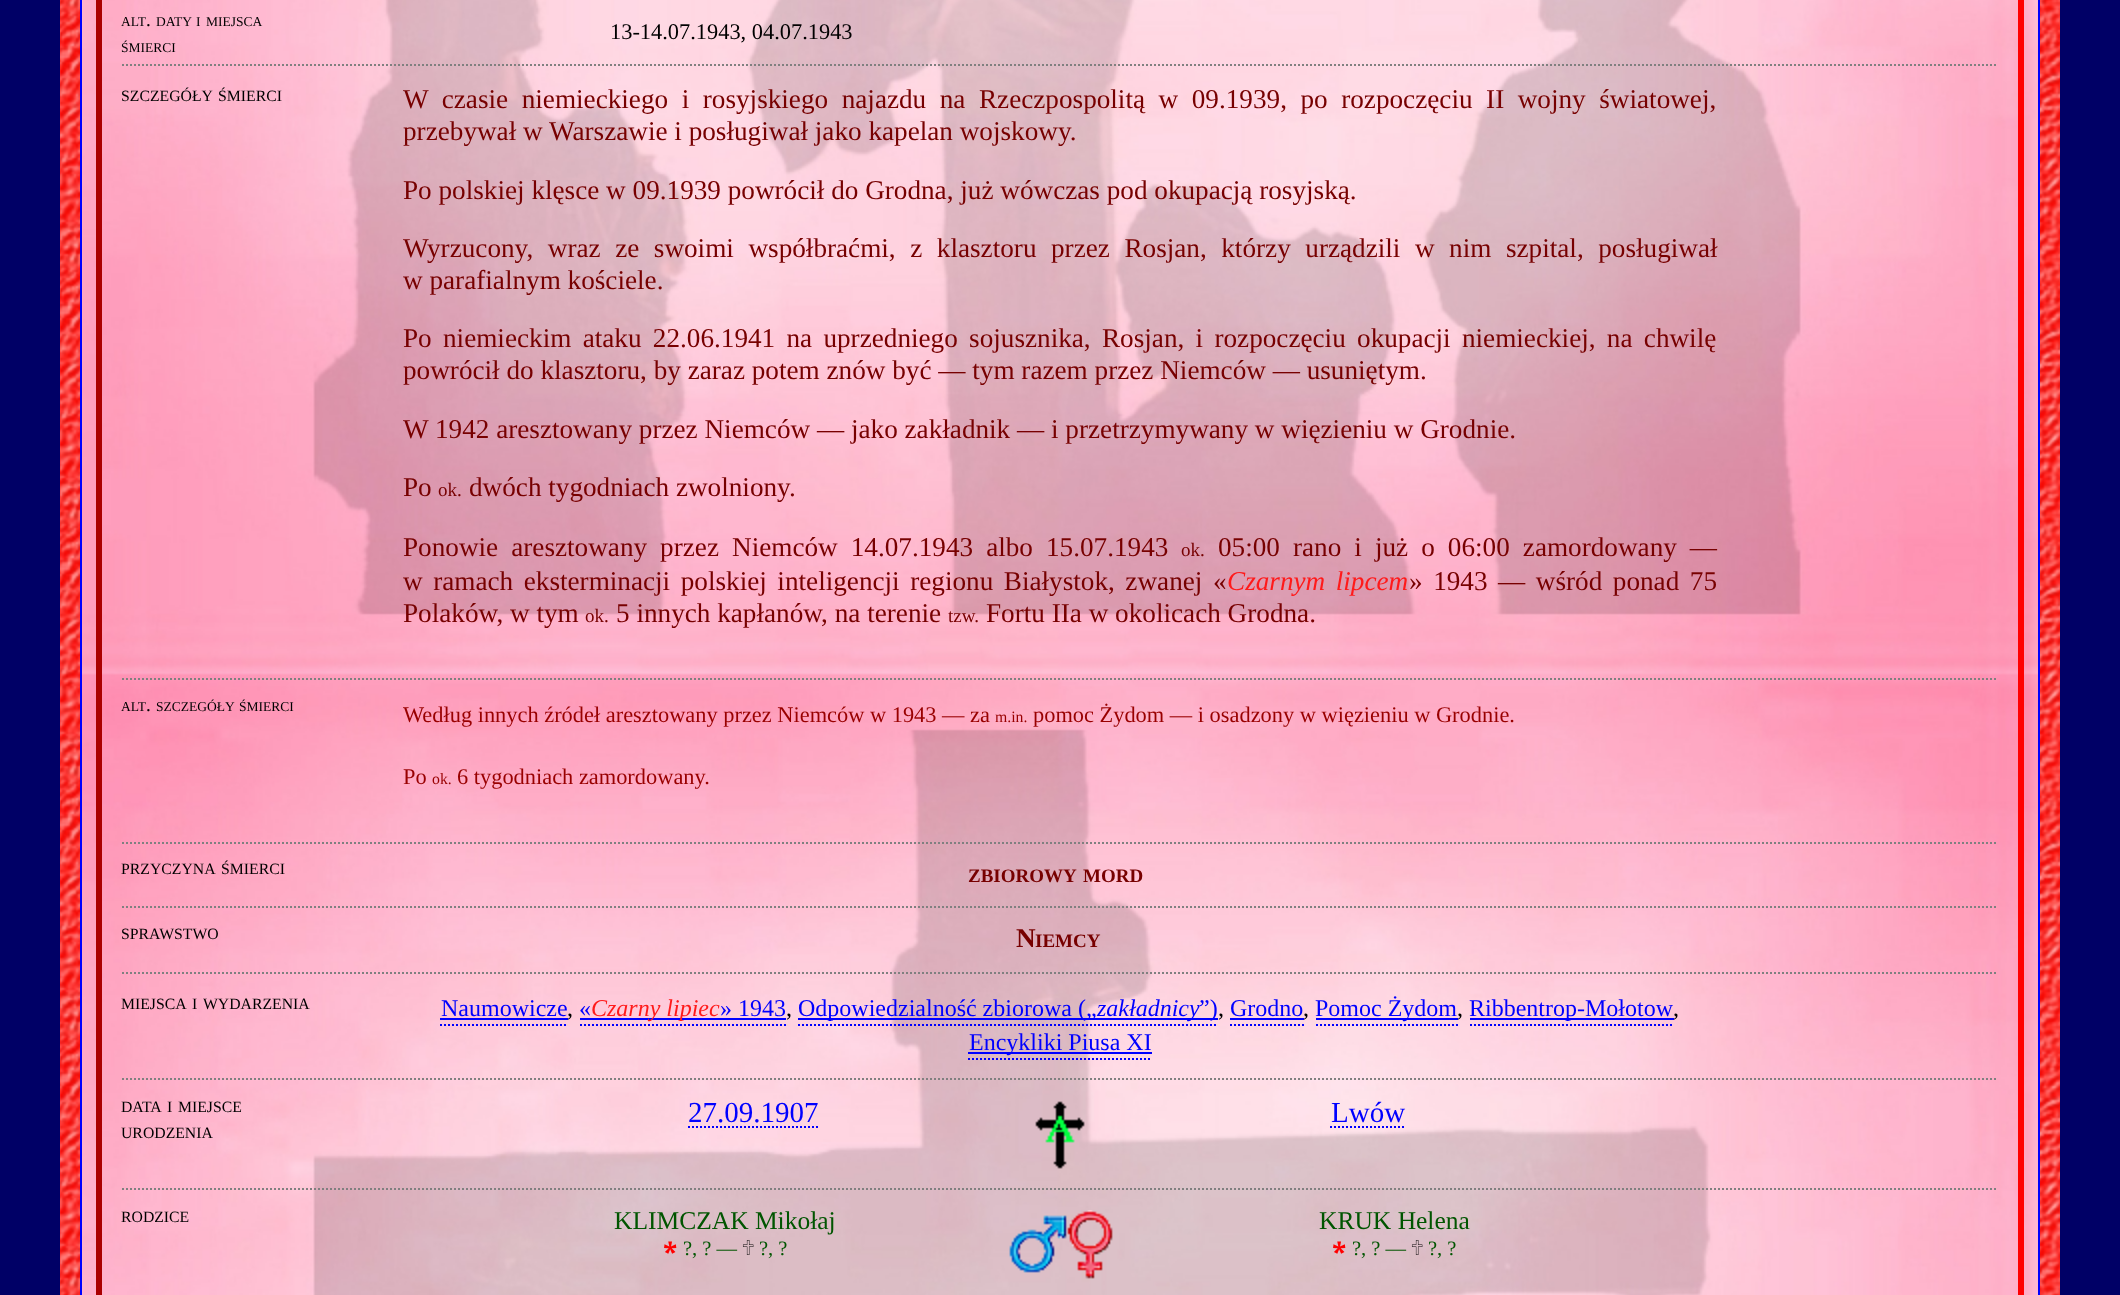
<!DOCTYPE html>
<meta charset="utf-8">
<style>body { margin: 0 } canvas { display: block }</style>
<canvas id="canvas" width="2120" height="1295"></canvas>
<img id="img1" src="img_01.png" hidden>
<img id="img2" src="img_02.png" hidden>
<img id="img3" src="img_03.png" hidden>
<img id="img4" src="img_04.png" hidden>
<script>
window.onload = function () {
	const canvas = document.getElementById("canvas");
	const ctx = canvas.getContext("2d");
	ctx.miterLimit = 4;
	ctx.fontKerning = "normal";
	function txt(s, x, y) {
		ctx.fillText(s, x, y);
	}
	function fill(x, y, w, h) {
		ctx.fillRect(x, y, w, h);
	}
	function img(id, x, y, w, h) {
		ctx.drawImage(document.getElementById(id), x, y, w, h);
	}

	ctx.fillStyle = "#000066";
	fill(0, 0, 2120, 1295);
	img("img1", 60, 0, 2000, 1295);
	img("img2", 82, 0, 1956, 1295);
	ctx.strokeStyle = "#0000FF";
	ctx.lineWidth = 2;
	ctx.strokeRect(81, -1, 1958, 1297);
	ctx.fillStyle = "#FF0000";
	ctx.beginPath();
	ctx.moveTo(2024, -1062);
	ctx.lineTo(2024, 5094);
	ctx.lineTo(2018, 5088);
	ctx.lineTo(2018, -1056);
	ctx.closePath();
	ctx.fill();
	ctx.fillStyle = "#AA0000";
	ctx.beginPath();
	ctx.moveTo(96, 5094);
	ctx.lineTo(96, -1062);
	ctx.lineTo(102, -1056);
	ctx.lineTo(102, 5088);
	ctx.closePath();
	ctx.fill();
	ctx.beginPath();
	ctx.moveTo(122, 65);
	ctx.lineTo(1998, 65);
	ctx.strokeStyle = "#808080";
	ctx.setLineDash([2, 2]);
	ctx.stroke();
	ctx.beginPath();
	ctx.moveTo(122, 679);
	ctx.lineTo(1998, 679);
	ctx.stroke();
	ctx.beginPath();
	ctx.moveTo(122, 843);
	ctx.lineTo(1998, 843);
	ctx.stroke();
	ctx.beginPath();
	ctx.moveTo(122, 907);
	ctx.lineTo(1998, 907);
	ctx.stroke();
	ctx.beginPath();
	ctx.moveTo(122, 973);
	ctx.lineTo(1998, 973);
	ctx.stroke();
	ctx.beginPath();
	ctx.moveTo(122, 1079);
	ctx.lineTo(1998, 1079);
	ctx.stroke();
	ctx.beginPath();
	ctx.moveTo(440, 1025);
	ctx.lineTo(568, 1025);
	ctx.strokeStyle = "#0000FF";
	ctx.stroke();
	ctx.fillStyle = "#0000FF";
	fill(440, 1018, 128, 2);
	ctx.beginPath();
	ctx.moveTo(580, 1025);
	ctx.lineTo(786, 1025);
	ctx.stroke();
	fill(580, 1018, 206, 2);
	ctx.beginPath();
	ctx.moveTo(798, 1025);
	ctx.lineTo(1218, 1025);
	ctx.stroke();
	fill(798, 1018, 420, 2);
	ctx.beginPath();
	ctx.moveTo(1230, 1025);
	ctx.lineTo(1304, 1025);
	ctx.stroke();
	fill(1230, 1018, 74, 2);
	ctx.beginPath();
	ctx.moveTo(1316, 1025);
	ctx.lineTo(1458, 1025);
	ctx.stroke();
	fill(1316, 1018, 142, 2);
	ctx.beginPath();
	ctx.moveTo(1470, 1025);
	ctx.lineTo(1674, 1025);
	ctx.stroke();
	fill(1470, 1018, 204, 2);
	ctx.beginPath();
	ctx.moveTo(968, 1059);
	ctx.lineTo(1152, 1059);
	ctx.stroke();
	fill(968, 1052, 184, 2);
	ctx.beginPath();
	ctx.moveTo(122, 1189);
	ctx.lineTo(1998, 1189);
	ctx.strokeStyle = "#808080";
	ctx.stroke();
	ctx.beginPath();
	ctx.moveTo(688, 1127);
	ctx.lineTo(818, 1127);
	ctx.strokeStyle = "#0000FF";
	ctx.stroke();
	img("img3", 1035, 1101, 50, 68);
	ctx.beginPath();
	ctx.moveTo(1330, 1127);
	ctx.lineTo(1404, 1127);
	ctx.stroke();
	img("img4", 1009, 1210, 104, 69);
	ctx.font = "13.5px Liberation Serif";
	ctx.fillStyle = "#000000";
	txt("ALT", 121, 26);
	ctx.font = "19px Liberation Serif";
	txt(".", 146, 26);
	ctx.font = "13.5px Liberation Serif";
	txt("DATY", 156, 26);
	txt("I", 196, 26);
	txt("MIEJSCA", 206, 26);
	txt("ŚMIERCI", 121, 52);
	ctx.font = "22.4px Liberation Serif";
	txt("13‑14.07.1943, 04.07.1943", 610, 39);
	ctx.font = "15.75px Liberation Serif";
	txt("SZCZEGÓŁY", 121, 101);
	txt("ŚMIERCI", 218, 101);
	ctx.wordSpacing = "6.75px";
	ctx.font = "27.2px Liberation Serif";
	ctx.fillStyle = "#770000";
	txt("W czasie niemieckiego i rosyjskiego najazdu na Rzeczpospolitą w 09.1939, po rozpoczęciu II wojny światowej,", 403, 108);
	ctx.wordSpacing = "0px";
	txt("przebywał w Warszawie i posługiwał jako kapelan wojskowy.", 403, 140);
	txt("Po polskiej klęsce w 09.1939 powrócił do Grodna, już wówczas pod okupacją rosyjską.", 403, 199);
	ctx.wordSpacing = "7.75px";
	txt("Wyrzucony, wraz ze swoimi współbraćmi, z klasztoru przez Rosjan, którzy urządzili w nim szpital, posługiwał", 403, 257);
	ctx.wordSpacing = "0px";
	txt("w parafialnym kościele.", 403, 289);
	ctx.wordSpacing = "4.5px";
	txt("Po niemieckim ataku 22.06.1941 na uprzedniego sojusznika, Rosjan, i rozpoczęciu okupacji niemieckiej, na chwilę", 403, 347);
	ctx.wordSpacing = "0px";
	txt("powrócił do klasztoru, by zaraz potem znów być — tym razem przez Niemców — usuniętym.", 403, 379);
	txt("W 1942 aresztowany przez Niemców — jako zakładnik — i przetrzymywany w więzieniu w Grodnie.", 403, 438);
	txt("Po", 403, 496);
	ctx.font = "19px Liberation Serif";
	txt("ok.", 438, 496);
	ctx.font = "27.2px Liberation Serif";
	txt("dwóch tygodniach zwolniony.", 469, 496);
	ctx.wordSpacing = "6.25px";
	txt("Ponowie aresztowany przez Niemców 14.07.1943 albo 15.07.1943", 403, 556);
	ctx.wordSpacing = "0px";
	ctx.font = "19px Liberation Serif";
	txt("ok.", 1181, 556);
	ctx.wordSpacing = "6.25px";
	ctx.font = "27.2px Liberation Serif";
	txt("05:00 rano i już o 06:00 zamordowany —", 1218, 556);
	ctx.wordSpacing = "3.75px";
	txt("w ramach eksterminacji polskiej inteligencji regionu Białystok, zwanej «", 403, 590);
	ctx.font = "italic 27.2px Liberation Serif";
	ctx.fillStyle = "#FF1A1A";
	txt("Czarnym lipcem", 1227, 590);
	ctx.font = "27.2px Liberation Serif";
	ctx.fillStyle = "#770000";
	txt("» 1943 — wśród ponad 75", 1409, 590);
	ctx.wordSpacing = "0px";
	txt("Polaków, w tym", 403, 622);
	ctx.font = "19px Liberation Serif";
	txt("ok.", 585, 622);
	ctx.font = "27.2px Liberation Serif";
	txt("5 innych kapłanów, na terenie", 616, 622);
	ctx.font = "19px Liberation Serif";
	txt("tzw.", 948, 622);
	ctx.font = "27.2px Liberation Serif";
	txt("Fortu IIa w okolicach Grodna.", 986, 622);
	ctx.font = "13.5px Liberation Serif";
	ctx.fillStyle = "#000000";
	txt("ALT", 121, 711);
	ctx.font = "19px Liberation Serif";
	txt(".", 146, 711);
	ctx.font = "13.5px Liberation Serif";
	txt("SZCZEGÓŁY", 156, 711);
	txt("ŚMIERCI", 239, 711);
	ctx.font = "22.4px Liberation Serif";
	ctx.fillStyle = "#990000";
	txt("Według innych źródeł aresztowany przez Niemców w 1943 — za", 403, 722);
	ctx.font = "15.75px Liberation Serif";
	txt("m.in.", 995, 722);
	ctx.font = "22.4px Liberation Serif";
	txt("pomoc Żydom — i osadzony w więzieniu w Grodnie.", 1033, 722);
	txt("Po", 403, 784);
	ctx.font = "15.75px Liberation Serif";
	txt("ok.", 432, 784);
	ctx.font = "22.4px Liberation Serif";
	txt("6 tygodniach zamordowany.", 457, 784);
	ctx.font = "15.75px Liberation Serif";
	ctx.fillStyle = "#000000";
	txt("PRZYCZYNA", 121, 874);
	txt("ŚMIERCI", 221, 874);
	ctx.font = "bold 19px Liberation Serif";
	ctx.fillStyle = "#770000";
	txt("ZBIOROWY", 968, 882);
	txt("MORD", 1083, 882);
	ctx.font = "15.75px Liberation Serif";
	ctx.fillStyle = "#000000";
	txt("SPRAWSTWO", 121, 939);
	ctx.font = "bold 27.2px Liberation Serif";
	ctx.fillStyle = "#770000";
	txt("N", 1016, 947);
	ctx.font = "bold 19px Liberation Serif";
	txt("IEMCY", 1035, 947);
	ctx.font = "15.75px Liberation Serif";
	ctx.fillStyle = "#000000";
	txt("MIEJSCA", 121, 1009);
	txt("I", 192, 1009);
	txt("WYDARZENIA", 203, 1009);
	ctx.font = "24px Liberation Serif";
	ctx.fillStyle = "#0000FF";
	txt("Naumowicze", 441, 1016);
	ctx.fillStyle = "#000000";
	txt(",", 567, 1016);
	ctx.fillStyle = "#0000FF";
	txt("«", 579, 1016);
	ctx.font = "italic 24px Liberation Serif";
	ctx.fillStyle = "#FF1A1A";
	txt("Czarny lipiec", 591, 1016);
	ctx.font = "24px Liberation Serif";
	ctx.fillStyle = "#0000FF";
	txt("» 1943", 720, 1016);
	ctx.fillStyle = "#000000";
	txt(",", 786, 1016);
	ctx.fillStyle = "#0000FF";
	txt("Odpowiedzialność zbiorowa („", 798, 1016);
	ctx.font = "italic 24px Liberation Serif";
	txt("zakładnicy", 1097, 1016);
	ctx.font = "24px Liberation Serif";
	txt("”)", 1199, 1016);
	ctx.fillStyle = "#000000";
	txt(",", 1218, 1016);
	ctx.fillStyle = "#0000FF";
	txt("Grodno", 1230, 1016);
	ctx.fillStyle = "#000000";
	txt(",", 1303, 1016);
	ctx.fillStyle = "#0000FF";
	txt("Pomoc Żydom", 1315, 1016);
	ctx.fillStyle = "#000000";
	txt(",", 1457, 1016);
	ctx.fillStyle = "#0000FF";
	txt("Ribbentrop‐Mołotow", 1469, 1016);
	ctx.fillStyle = "#000000";
	txt(",", 1673, 1016);
	ctx.fillStyle = "#0000FF";
	txt("Encykliki Piusa XI", 969, 1050);
	ctx.font = "15.75px Liberation Serif";
	ctx.fillStyle = "#000000";
	txt("DATA", 121, 1112);
	txt("I", 167, 1112);
	txt("MIEJSCE", 178, 1112);
	txt("URODZENIA", 121, 1138);
	ctx.font = "29px Liberation Serif";
	ctx.fillStyle = "#0000FF";
	txt("27.09.1907", 688, 1122);
	txt("Lwów", 1331, 1122);
	ctx.font = "15.75px Liberation Serif";
	ctx.fillStyle = "#000000";
	txt("RODZICE", 121, 1222);
	ctx.font = "25.5px Liberation Serif";
	ctx.fillStyle = "#005500";
	txt("KLIMCZAK Mikołaj", 614, 1229);
	ctx.font = "20.5px Noto Sans Math";
	ctx.fillStyle = "#FF0000";
	txt("🞲", 663, 1255);
	ctx.font = "20.5px Liberation Serif";
	ctx.fillStyle = "#005500";
	txt("?, ? —", 683, 1255);
	ctx.font = "20.5px FreeSans";
	ctx.fillStyle = "#000000";
	txt("🕆", 742, 1255);
	ctx.font = "20.5px Liberation Serif";
	ctx.fillStyle = "#005500";
	txt("?, ?", 759, 1255);
	ctx.font = "25.5px Liberation Serif";
	txt("KRUK Helena", 1319, 1229);
	ctx.font = "20.5px Noto Sans Math";
	ctx.fillStyle = "#FF0000";
	txt("🞲", 1332, 1255);
	ctx.font = "20.5px Liberation Serif";
	ctx.fillStyle = "#005500";
	txt("?, ? —", 1352, 1255);
	ctx.font = "20.5px FreeSans";
	ctx.fillStyle = "#000000";
	txt("🕆", 1411, 1255);
	ctx.font = "20.5px Liberation Serif";
	ctx.fillStyle = "#005500";
	txt("?, ?", 1428, 1255);
};
</script>
